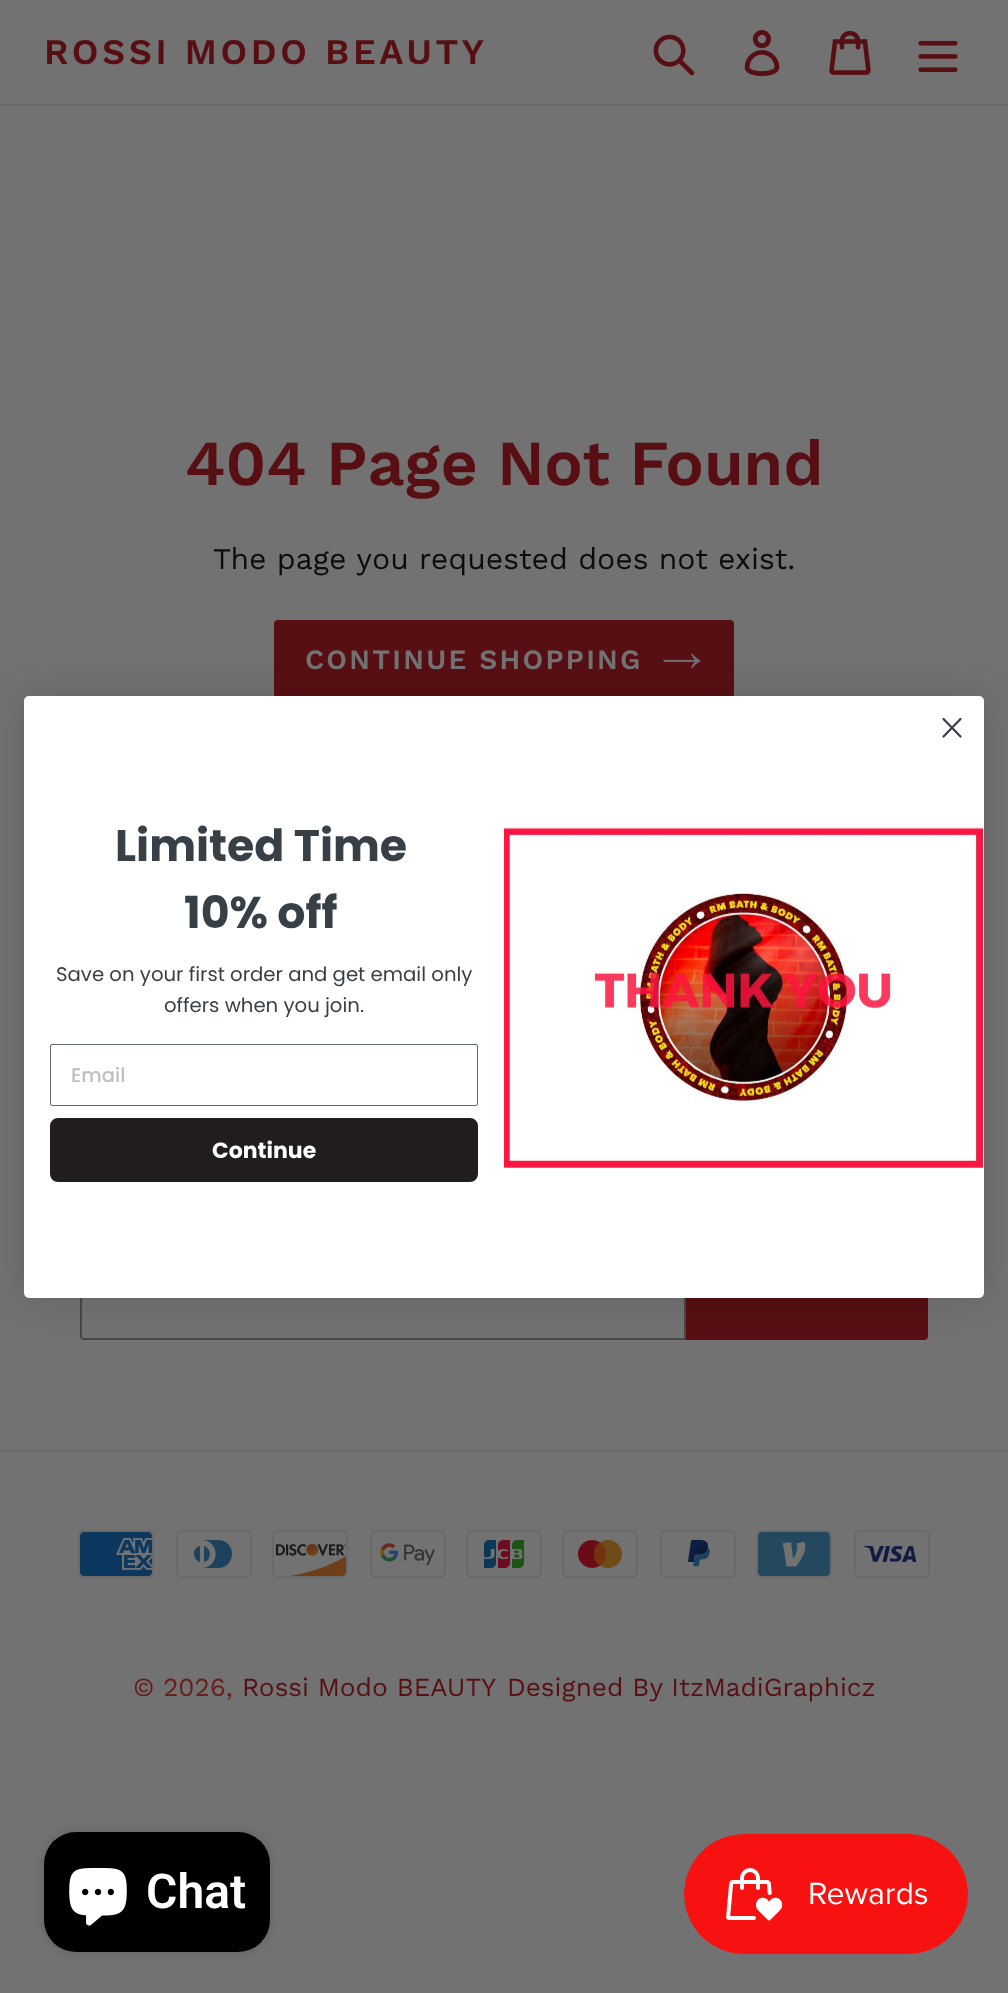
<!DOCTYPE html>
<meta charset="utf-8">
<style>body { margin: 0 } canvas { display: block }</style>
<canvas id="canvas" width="1008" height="1993"></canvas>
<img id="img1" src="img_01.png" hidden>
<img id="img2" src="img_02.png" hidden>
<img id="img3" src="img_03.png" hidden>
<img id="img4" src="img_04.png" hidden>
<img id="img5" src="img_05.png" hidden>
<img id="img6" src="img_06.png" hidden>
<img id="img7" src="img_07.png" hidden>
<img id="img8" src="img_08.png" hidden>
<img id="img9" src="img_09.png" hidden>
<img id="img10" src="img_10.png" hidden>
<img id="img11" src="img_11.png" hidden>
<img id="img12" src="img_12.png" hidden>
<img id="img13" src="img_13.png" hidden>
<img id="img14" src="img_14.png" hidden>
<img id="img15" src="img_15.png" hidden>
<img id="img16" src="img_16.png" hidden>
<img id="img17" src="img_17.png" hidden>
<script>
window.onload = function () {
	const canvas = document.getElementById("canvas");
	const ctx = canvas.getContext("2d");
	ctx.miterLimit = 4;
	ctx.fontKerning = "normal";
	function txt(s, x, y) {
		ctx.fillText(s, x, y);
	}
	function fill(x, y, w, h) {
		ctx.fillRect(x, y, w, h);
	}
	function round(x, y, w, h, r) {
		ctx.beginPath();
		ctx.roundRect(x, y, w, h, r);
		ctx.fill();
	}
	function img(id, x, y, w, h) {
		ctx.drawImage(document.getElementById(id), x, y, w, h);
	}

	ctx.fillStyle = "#727272";
	fill(0, 0, 1008, 1993);
	ctx.fillStyle = "#69696A";
	fill(0, 104, 1008, 2);
	img("img1", 653, 34, 42, 42);
	img("img2", 744, 30, 36, 46);
	img("img3", 829, 30, 42, 45);
	img("img4", 918, 40, 40, 32);
	ctx.fillStyle = "#580F13";
	round(274, 620, 460, 78, 4);
	img("img5", 663, 653, 38, 15);
	ctx.beginPath();
	ctx.roundRect(81, 1257, 604, 82, [3, 0, 0, 3]);
	ctx.strokeStyle = "#474747";
	ctx.lineWidth = 2;
	ctx.stroke();
	ctx.beginPath();
	ctx.roundRect(686, 1256, 242, 84, [0, 4, 4, 0]);
	ctx.fill();
	ctx.fillStyle = "#686868";
	fill(0, 1450, 1008, 2);
	img("img6", 78, 1530, 76, 48);
	img("img7", 176, 1530, 76, 48);
	img("img8", 272, 1530, 76, 48);
	img("img9", 370, 1530, 76, 48);
	img("img10", 466, 1530, 76, 48);
	img("img11", 562, 1530, 76, 48);
	img("img12", 660, 1530, 76, 48);
	img("img13", 756, 1530, 76, 48);
	img("img14", 854, 1530, 76, 48);
	ctx.fillStyle = "rgba(0, 0, 0, 0.15)";
	ctx.filter = "blur(18.5px)";
	ctx.beginPath();
	ctx.roundRect(24, 696, 960, 602, 5);
	ctx.fill();
	ctx.filter = "none";
	ctx.fillStyle = "#FFFFFF";
	round(24, 696, 960, 602, 5);
	ctx.beginPath();
	ctx.moveTo(943.5, 719);
	ctx.lineTo(960.5, 736.5);
	ctx.moveTo(943.5, 736.5);
	ctx.lineTo(960.5, 719);
	ctx.closePath();
	ctx.strokeStyle = "#373F47";
	ctx.lineWidth = 2.2;
	ctx.lineCap = "round";
	ctx.lineJoin = "round";
	ctx.stroke();
	ctx.beginPath();
	ctx.roundRect(50.5, 1044.5, 427, 61, 1.5);
	ctx.strokeStyle = "#606A72";
	ctx.lineWidth = 1;
	ctx.lineJoin = "miter";
	ctx.stroke();
	ctx.fillStyle = "#211D1C";
	ctx.beginPath();
	ctx.roundRect(53.5, 1121.5, 421, 57, 4.5);
	ctx.fill();
	ctx.strokeStyle = "#211D1C";
	ctx.lineWidth = 7;
	ctx.stroke();
	img("img15", 504, 827, 480, 341);
	ctx.fillStyle = "rgba(0, 0, 0, 0.15)";
	ctx.filter = "blur(5px)";
	ctx.beginPath();
	ctx.roundRect(44, 1832, 226, 120, 32);
	ctx.fill();
	ctx.filter = "none";
	ctx.fillStyle = "#000000";
	round(44, 1832, 226, 120, 32);
	img("img16", 69, 1868, 58, 58);
	img("img17", 684, 1834, 284, 120);
	ctx.letterSpacing = "3.6px";
	ctx.font = "600 36px Work Sans";
	ctx.fillStyle = "#580F13";
	txt("ROSSI MODO BEAUTY", 44, 64);
	ctx.letterSpacing = "0px";
	ctx.font = "600 64px Work Sans";
	txt("404 Page Not Found", 185, 485);
	ctx.font = "30px Work Sans";
	ctx.fillStyle = "#0C0C0C";
	txt("The page you requested does not exist.", 213, 569);
	ctx.letterSpacing = "2.25px";
	ctx.font = "600 28px Work Sans";
	ctx.fillStyle = "#727272";
	txt("CONTINUE SHOPPING", 305, 669);
	ctx.letterSpacing = "0px";
	ctx.font = "26px Work Sans";
	ctx.fillStyle = "#671E1D";
	txt("© 2026,", 133, 1696);
	ctx.fillStyle = "#580F13";
	txt("Rossi Modo BEAUTY", 242, 1696);
	txt("Designed By ItzMadiGraphicz", 507, 1696);
	ctx.font = "bold 44.25px Poppins";
	ctx.fillStyle = "#373F47";
	txt("Limited Time", 115, 861);
	txt("10% off", 184, 928);
	ctx.font = "19.7px Poppins";
	txt("Save on your first order and get email only", 56, 981);
	txt("offers when you join.", 164, 1012);
	ctx.font = "500 19.7px Poppins";
	ctx.fillStyle = "#BFBFC0";
	txt("Email", 71, 1082);
	ctx.font = "bold 22px Poppins";
	ctx.fillStyle = "#FFFFFF";
	txt("Continue", 212, 1158);
	ctx.font = "600 48px Roboto";
	txt("Chat", 146, 1908);
};
</script>
